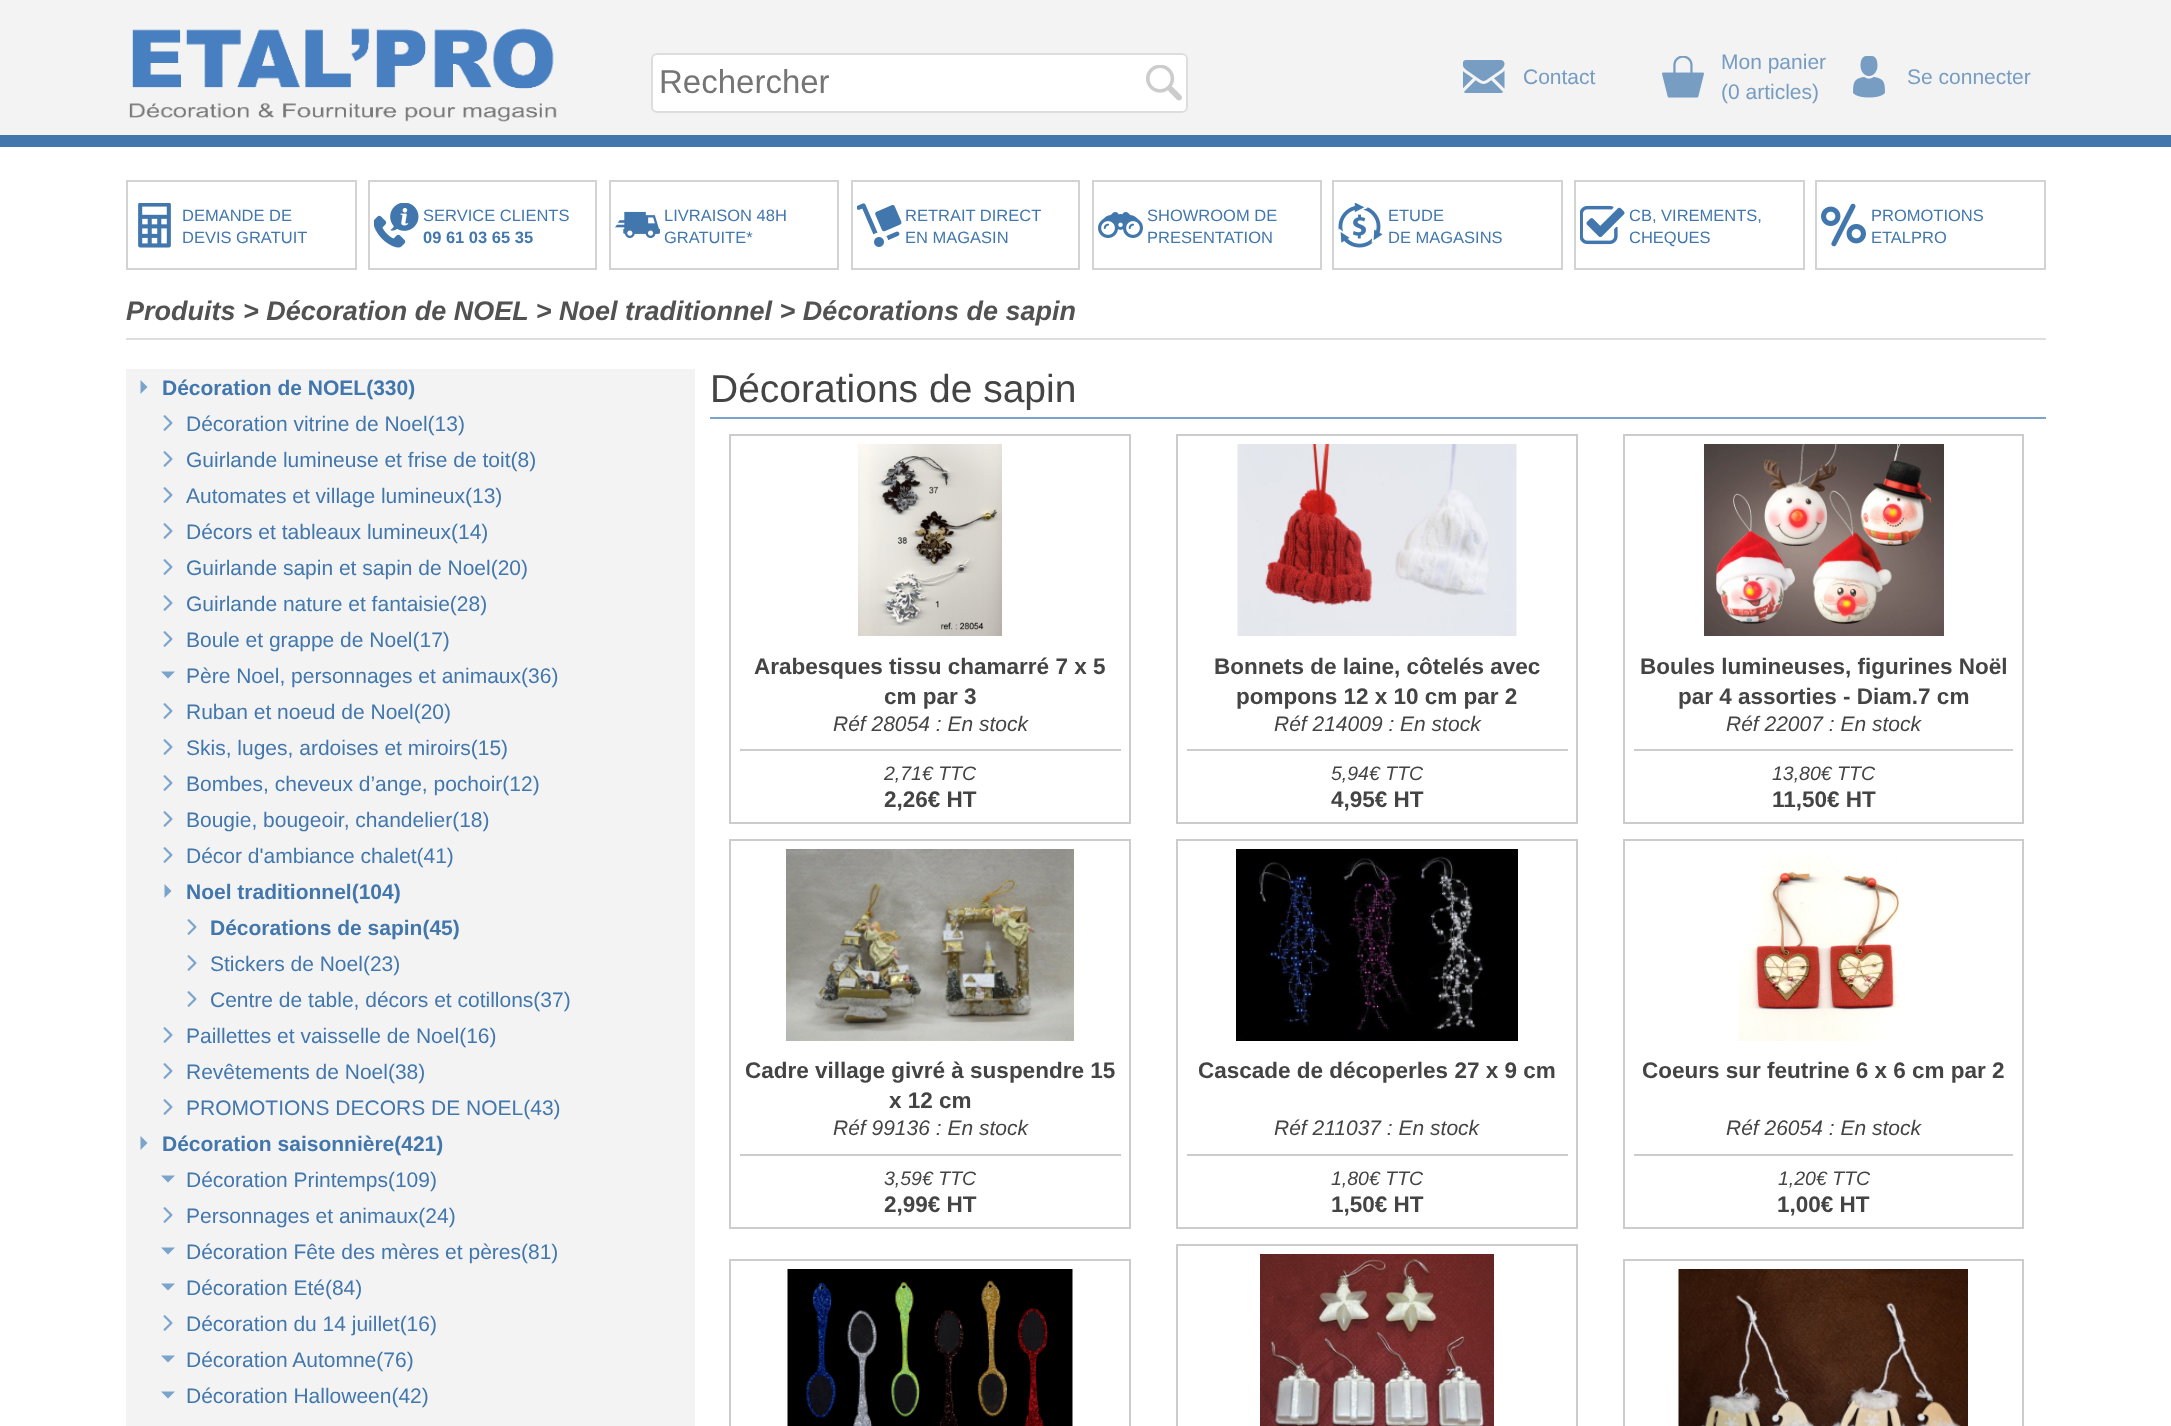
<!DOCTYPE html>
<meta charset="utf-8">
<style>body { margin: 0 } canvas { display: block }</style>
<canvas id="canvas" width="2171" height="1426"></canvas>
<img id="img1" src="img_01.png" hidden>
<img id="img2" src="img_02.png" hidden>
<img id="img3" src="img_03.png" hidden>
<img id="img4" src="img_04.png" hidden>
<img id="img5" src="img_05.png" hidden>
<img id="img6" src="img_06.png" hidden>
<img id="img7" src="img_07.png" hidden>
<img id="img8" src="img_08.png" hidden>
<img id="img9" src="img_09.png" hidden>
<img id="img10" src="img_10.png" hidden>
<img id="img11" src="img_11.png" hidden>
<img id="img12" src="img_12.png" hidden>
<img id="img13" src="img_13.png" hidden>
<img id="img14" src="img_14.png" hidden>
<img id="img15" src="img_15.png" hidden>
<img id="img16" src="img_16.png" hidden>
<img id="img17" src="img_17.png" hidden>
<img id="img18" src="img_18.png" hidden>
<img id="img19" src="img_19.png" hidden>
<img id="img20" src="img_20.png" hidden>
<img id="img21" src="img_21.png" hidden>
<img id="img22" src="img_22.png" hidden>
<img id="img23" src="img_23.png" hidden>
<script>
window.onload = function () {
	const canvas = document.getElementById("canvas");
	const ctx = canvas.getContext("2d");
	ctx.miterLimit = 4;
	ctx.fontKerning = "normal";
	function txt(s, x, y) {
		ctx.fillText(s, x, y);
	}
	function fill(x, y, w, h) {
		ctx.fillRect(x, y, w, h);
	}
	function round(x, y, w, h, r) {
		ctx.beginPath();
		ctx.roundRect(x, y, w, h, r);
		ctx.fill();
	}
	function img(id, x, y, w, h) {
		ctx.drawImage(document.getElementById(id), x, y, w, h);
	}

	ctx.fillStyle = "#FFFFFF";
	fill(0, 0, 2171, 1426);
	ctx.fillStyle = "#F3F3F3";
	fill(0, 0, 2171, 135);
	ctx.fillStyle = "#4277AD";
	fill(0, 135, 2171, 12);
	img("img1", 129, 28, 428, 94);
	ctx.fillStyle = "#FFFFFF";
	round(651, 53, 537, 60, 6);
	img("img2", 1146, 65, 36, 36);
	ctx.beginPath();
	ctx.roundRect(652, 54, 535, 58, 5);
	ctx.strokeStyle = "#DDDDDD";
	ctx.lineWidth = 2;
	ctx.stroke();
	img("img3", 1463, 60, 42, 33);
	img("img4", 1662, 56, 42, 42);
	img("img5", 1853, 56, 32, 42);
	img("img6", 138, 203, 33, 45);
	ctx.strokeStyle = "#D3D3D3";
	ctx.strokeRect(127, 181, 229, 88);
	img("img7", 374, 203, 45, 45);
	ctx.strokeRect(369, 181, 227, 88);
	img("img8", 615, 211, 45, 27);
	ctx.strokeRect(610, 181, 228, 88);
	img("img9", 857, 203, 45, 44);
	ctx.strokeRect(852, 181, 227, 88);
	img("img10", 1098, 212, 45, 26);
	ctx.strokeRect(1093, 181, 228, 88);
	img("img11", 1338, 203, 45, 45);
	ctx.strokeRect(1333, 181, 229, 88);
	img("img12", 1580, 205, 45, 40);
	ctx.strokeRect(1575, 181, 229, 88);
	img("img13", 1821, 203, 45, 44);
	ctx.strokeRect(1816, 181, 229, 88);
	ctx.fillStyle = "#DEDEDE";
	fill(126, 338, 1920, 2);
	ctx.fillStyle = "#F3F3F3";
	fill(126, 369, 569, 1057);
	ctx.fillStyle = "#7BA4CC";
	ctx.beginPath();
	ctx.moveTo(140.5, 394);
	ctx.lineTo(140.5, 380);
	ctx.lineTo(147.5, 387);
	ctx.closePath();
	ctx.fill();
	img("img14", 163, 415, 10, 16);
	img("img14", 163, 451, 10, 16);
	img("img14", 163, 487, 10, 16);
	img("img14", 163, 523, 10, 16);
	img("img14", 163, 559, 10, 16);
	img("img14", 163, 595, 10, 16);
	img("img14", 163, 631, 10, 16);
	ctx.beginPath();
	ctx.moveTo(161, 671.5);
	ctx.lineTo(175, 671.5);
	ctx.lineTo(168, 678.5);
	ctx.closePath();
	ctx.fill();
	img("img14", 163, 703, 10, 16);
	img("img14", 163, 739, 10, 16);
	img("img14", 163, 775, 10, 16);
	img("img14", 163, 811, 10, 16);
	img("img14", 163, 847, 10, 16);
	ctx.beginPath();
	ctx.moveTo(164.5, 898);
	ctx.lineTo(164.5, 884);
	ctx.lineTo(171.5, 891);
	ctx.closePath();
	ctx.fill();
	img("img14", 187, 919, 10, 16);
	img("img14", 187, 955, 10, 16);
	img("img14", 187, 991, 10, 16);
	img("img14", 163, 1027, 10, 16);
	img("img14", 163, 1063, 10, 16);
	img("img14", 163, 1099, 10, 16);
	ctx.beginPath();
	ctx.moveTo(140.5, 1150);
	ctx.lineTo(140.5, 1136);
	ctx.lineTo(147.5, 1143);
	ctx.closePath();
	ctx.fill();
	ctx.beginPath();
	ctx.moveTo(161, 1175.5);
	ctx.lineTo(175, 1175.5);
	ctx.lineTo(168, 1182.5);
	ctx.closePath();
	ctx.fill();
	img("img14", 163, 1207, 10, 16);
	ctx.beginPath();
	ctx.moveTo(161, 1247.5);
	ctx.lineTo(175, 1247.5);
	ctx.lineTo(168, 1254.5);
	ctx.closePath();
	ctx.moveTo(161, 1283.5);
	ctx.lineTo(175, 1283.5);
	ctx.lineTo(168, 1290.5);
	ctx.closePath();
	ctx.fill();
	img("img14", 163, 1315, 10, 16);
	ctx.beginPath();
	ctx.moveTo(161, 1355.5);
	ctx.lineTo(175, 1355.5);
	ctx.lineTo(168, 1362.5);
	ctx.closePath();
	ctx.moveTo(161, 1391.5);
	ctx.lineTo(175, 1391.5);
	ctx.lineTo(168, 1398.5);
	ctx.closePath();
	ctx.fill();
	fill(710, 417, 1336, 2);
	ctx.strokeStyle = "#CCCCCC";
	ctx.strokeRect(730, 435, 400, 388);
	img("img15", 858, 444, 144, 192);
	ctx.fillStyle = "#CCCCCC";
	fill(740, 749, 381, 2);
	ctx.strokeRect(1177, 435, 400, 388);
	img("img16", 1237, 444, 280, 192);
	fill(1187, 749, 381, 2);
	ctx.strokeRect(1624, 435, 399, 388);
	img("img17", 1704, 444, 240, 192);
	fill(1634, 749, 379, 2);
	ctx.strokeRect(730, 840, 400, 388);
	img("img18", 786, 849, 288, 192);
	fill(740, 1154, 381, 2);
	ctx.strokeRect(1177, 840, 400, 388);
	img("img19", 1236, 849, 282, 192);
	fill(1187, 1154, 381, 2);
	ctx.strokeRect(1624, 840, 399, 388);
	img("img20", 1738, 852, 165, 189);
	fill(1634, 1154, 379, 2);
	ctx.strokeRect(730, 1260, 400, 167);
	img("img21", 787, 1269, 286, 157);
	ctx.strokeRect(1177, 1245, 400, 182);
	img("img22", 1260, 1254, 234, 172);
	ctx.strokeRect(1624, 1260, 399, 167);
	img("img23", 1678, 1269, 290, 157);
	ctx.font = "33px Liberation Sans";
	ctx.fillStyle = "#757575";
	txt("Rechercher", 659, 93);
	ctx.font = "21px Liberation Sans";
	ctx.fillStyle = "#779CC2";
	txt("Contact", 1523, 84);
	txt("Mon panier", 1721, 69);
	txt("(0 articles)", 1721, 99);
	txt("Se connecter", 1907, 84);
	ctx.font = "16.5px Liberation Sans";
	ctx.fillStyle = "#4277AD";
	txt("DEMANDE DE", 182, 221);
	txt("DEVIS GRATUIT", 182, 243);
	txt("SERVICE CLIENTS", 423, 221);
	ctx.font = "bold 16.5px Liberation Sans";
	txt("09 61 03 65 35", 423, 243);
	ctx.font = "16.5px Liberation Sans";
	txt("LIVRAISON 48H", 664, 221);
	txt("GRATUITE*", 664, 243);
	txt("RETRAIT DIRECT", 905, 221);
	txt("EN MAGASIN", 905, 243);
	txt("SHOWROOM DE", 1147, 221);
	txt("PRESENTATION", 1147, 243);
	txt("ETUDE", 1388, 221);
	txt("DE MAGASINS", 1388, 243);
	txt("CB, VIREMENTS,", 1629, 221);
	txt("CHEQUES", 1629, 243);
	txt("PROMOTIONS", 1871, 221);
	txt("ETALPRO", 1871, 243);
	ctx.font = "italic bold 27px Liberation Sans";
	ctx.fillStyle = "#525252";
	txt("Produits > Décoration de NOEL > Noel traditionnel > Décorations de sapin", 126, 320);
	ctx.font = "bold 21px Liberation Sans";
	ctx.fillStyle = "#4277AD";
	txt("Décoration de NOEL(330)", 162, 395);
	ctx.font = "21px Liberation Sans";
	txt("Décoration vitrine de Noel(13)", 186, 431);
	txt("Guirlande lumineuse et frise de toit(8)", 186, 467);
	txt("Automates et village lumineux(13)", 186, 503);
	txt("Décors et tableaux lumineux(14)", 186, 539);
	txt("Guirlande sapin et sapin de Noel(20)", 186, 575);
	txt("Guirlande nature et fantaisie(28)", 186, 611);
	txt("Boule et grappe de Noel(17)", 186, 647);
	txt("Père Noel, personnages et animaux(36)", 186, 683);
	txt("Ruban et noeud de Noel(20)", 186, 719);
	txt("Skis, luges, ardoises et miroirs(15)", 186, 755);
	txt("Bombes, cheveux d’ange, pochoir(12)", 186, 791);
	txt("Bougie, bougeoir, chandelier(18)", 186, 827);
	txt("Décor d'ambiance chalet(41)", 186, 863);
	ctx.font = "bold 21px Liberation Sans";
	txt("Noel traditionnel(104)", 186, 899);
	txt("Décorations de sapin(45)", 210, 935);
	ctx.font = "21px Liberation Sans";
	txt("Stickers de Noel(23)", 210, 971);
	txt("Centre de table, décors et cotillons(37)", 210, 1007);
	txt("Paillettes et vaisselle de Noel(16)", 186, 1043);
	txt("Revêtements de Noel(38)", 186, 1079);
	txt("PROMOTIONS DECORS DE NOEL(43)", 186, 1115);
	ctx.font = "bold 21px Liberation Sans";
	txt("Décoration saisonnière(421)", 162, 1151);
	ctx.font = "21px Liberation Sans";
	txt("Décoration Printemps(109)", 186, 1187);
	txt("Personnages et animaux(24)", 186, 1223);
	txt("Décoration Fête des mères et pères(81)", 186, 1259);
	txt("Décoration Eté(84)", 186, 1295);
	txt("Décoration du 14 juillet(16)", 186, 1331);
	txt("Décoration Automne(76)", 186, 1367);
	txt("Décoration Halloween(42)", 186, 1403);
	ctx.font = "39px Liberation Sans";
	ctx.fillStyle = "#444444";
	txt("Décorations de sapin", 710, 402);
	ctx.font = "bold 22.5px Liberation Sans";
	txt("Arabesques tissu chamarré 7 x 5", 754, 674);
	txt("cm par 3", 884, 704);
	ctx.font = "italic 21px Liberation Sans";
	txt("Réf 28054 : En stock", 833, 731);
	ctx.font = "italic 19.5px Liberation Sans";
	txt("2,71€ TTC", 884, 780);
	ctx.font = "bold 22.5px Liberation Sans";
	txt("2,26€ HT", 884, 807);
	txt("Bonnets de laine, côtelés avec", 1214, 674);
	txt("pompons 12 x 10 cm par 2", 1236, 704);
	ctx.font = "italic 21px Liberation Sans";
	txt("Réf 214009 : En stock", 1274, 731);
	ctx.font = "italic 19.5px Liberation Sans";
	txt("5,94€ TTC", 1331, 780);
	ctx.font = "bold 22.5px Liberation Sans";
	txt("4,95€ HT", 1331, 807);
	txt("Boules lumineuses, figurines Noël", 1640, 674);
	txt("par 4 assorties - Diam.7 cm", 1678, 704);
	ctx.font = "italic 21px Liberation Sans";
	txt("Réf 22007 : En stock", 1726, 731);
	ctx.font = "italic 19.5px Liberation Sans";
	txt("13,80€ TTC", 1772, 780);
	ctx.font = "bold 22.5px Liberation Sans";
	txt("11,50€ HT", 1772, 807);
	txt("Cadre village givré à suspendre 15", 745, 1078);
	txt("x 12 cm", 889, 1108);
	ctx.font = "italic 21px Liberation Sans";
	txt("Réf 99136 : En stock", 833, 1135);
	ctx.font = "italic 19.5px Liberation Sans";
	txt("3,59€ TTC", 884, 1185);
	ctx.font = "bold 22.5px Liberation Sans";
	txt("2,99€ HT", 884, 1212);
	txt("Cascade de décoperles 27 x 9 cm", 1198, 1078);
	ctx.font = "italic 21px Liberation Sans";
	txt("Réf 211037 : En stock", 1274, 1135);
	ctx.font = "italic 19.5px Liberation Sans";
	txt("1,80€ TTC", 1331, 1185);
	ctx.font = "bold 22.5px Liberation Sans";
	txt("1,50€ HT", 1331, 1212);
	txt("Coeurs sur feutrine 6 x 6 cm par 2", 1642, 1078);
	ctx.font = "italic 21px Liberation Sans";
	txt("Réf 26054 : En stock", 1726, 1135);
	ctx.font = "italic 19.5px Liberation Sans";
	txt("1,20€ TTC", 1778, 1185);
	ctx.font = "bold 22.5px Liberation Sans";
	txt("1,00€ HT", 1777, 1212);
};
</script>
